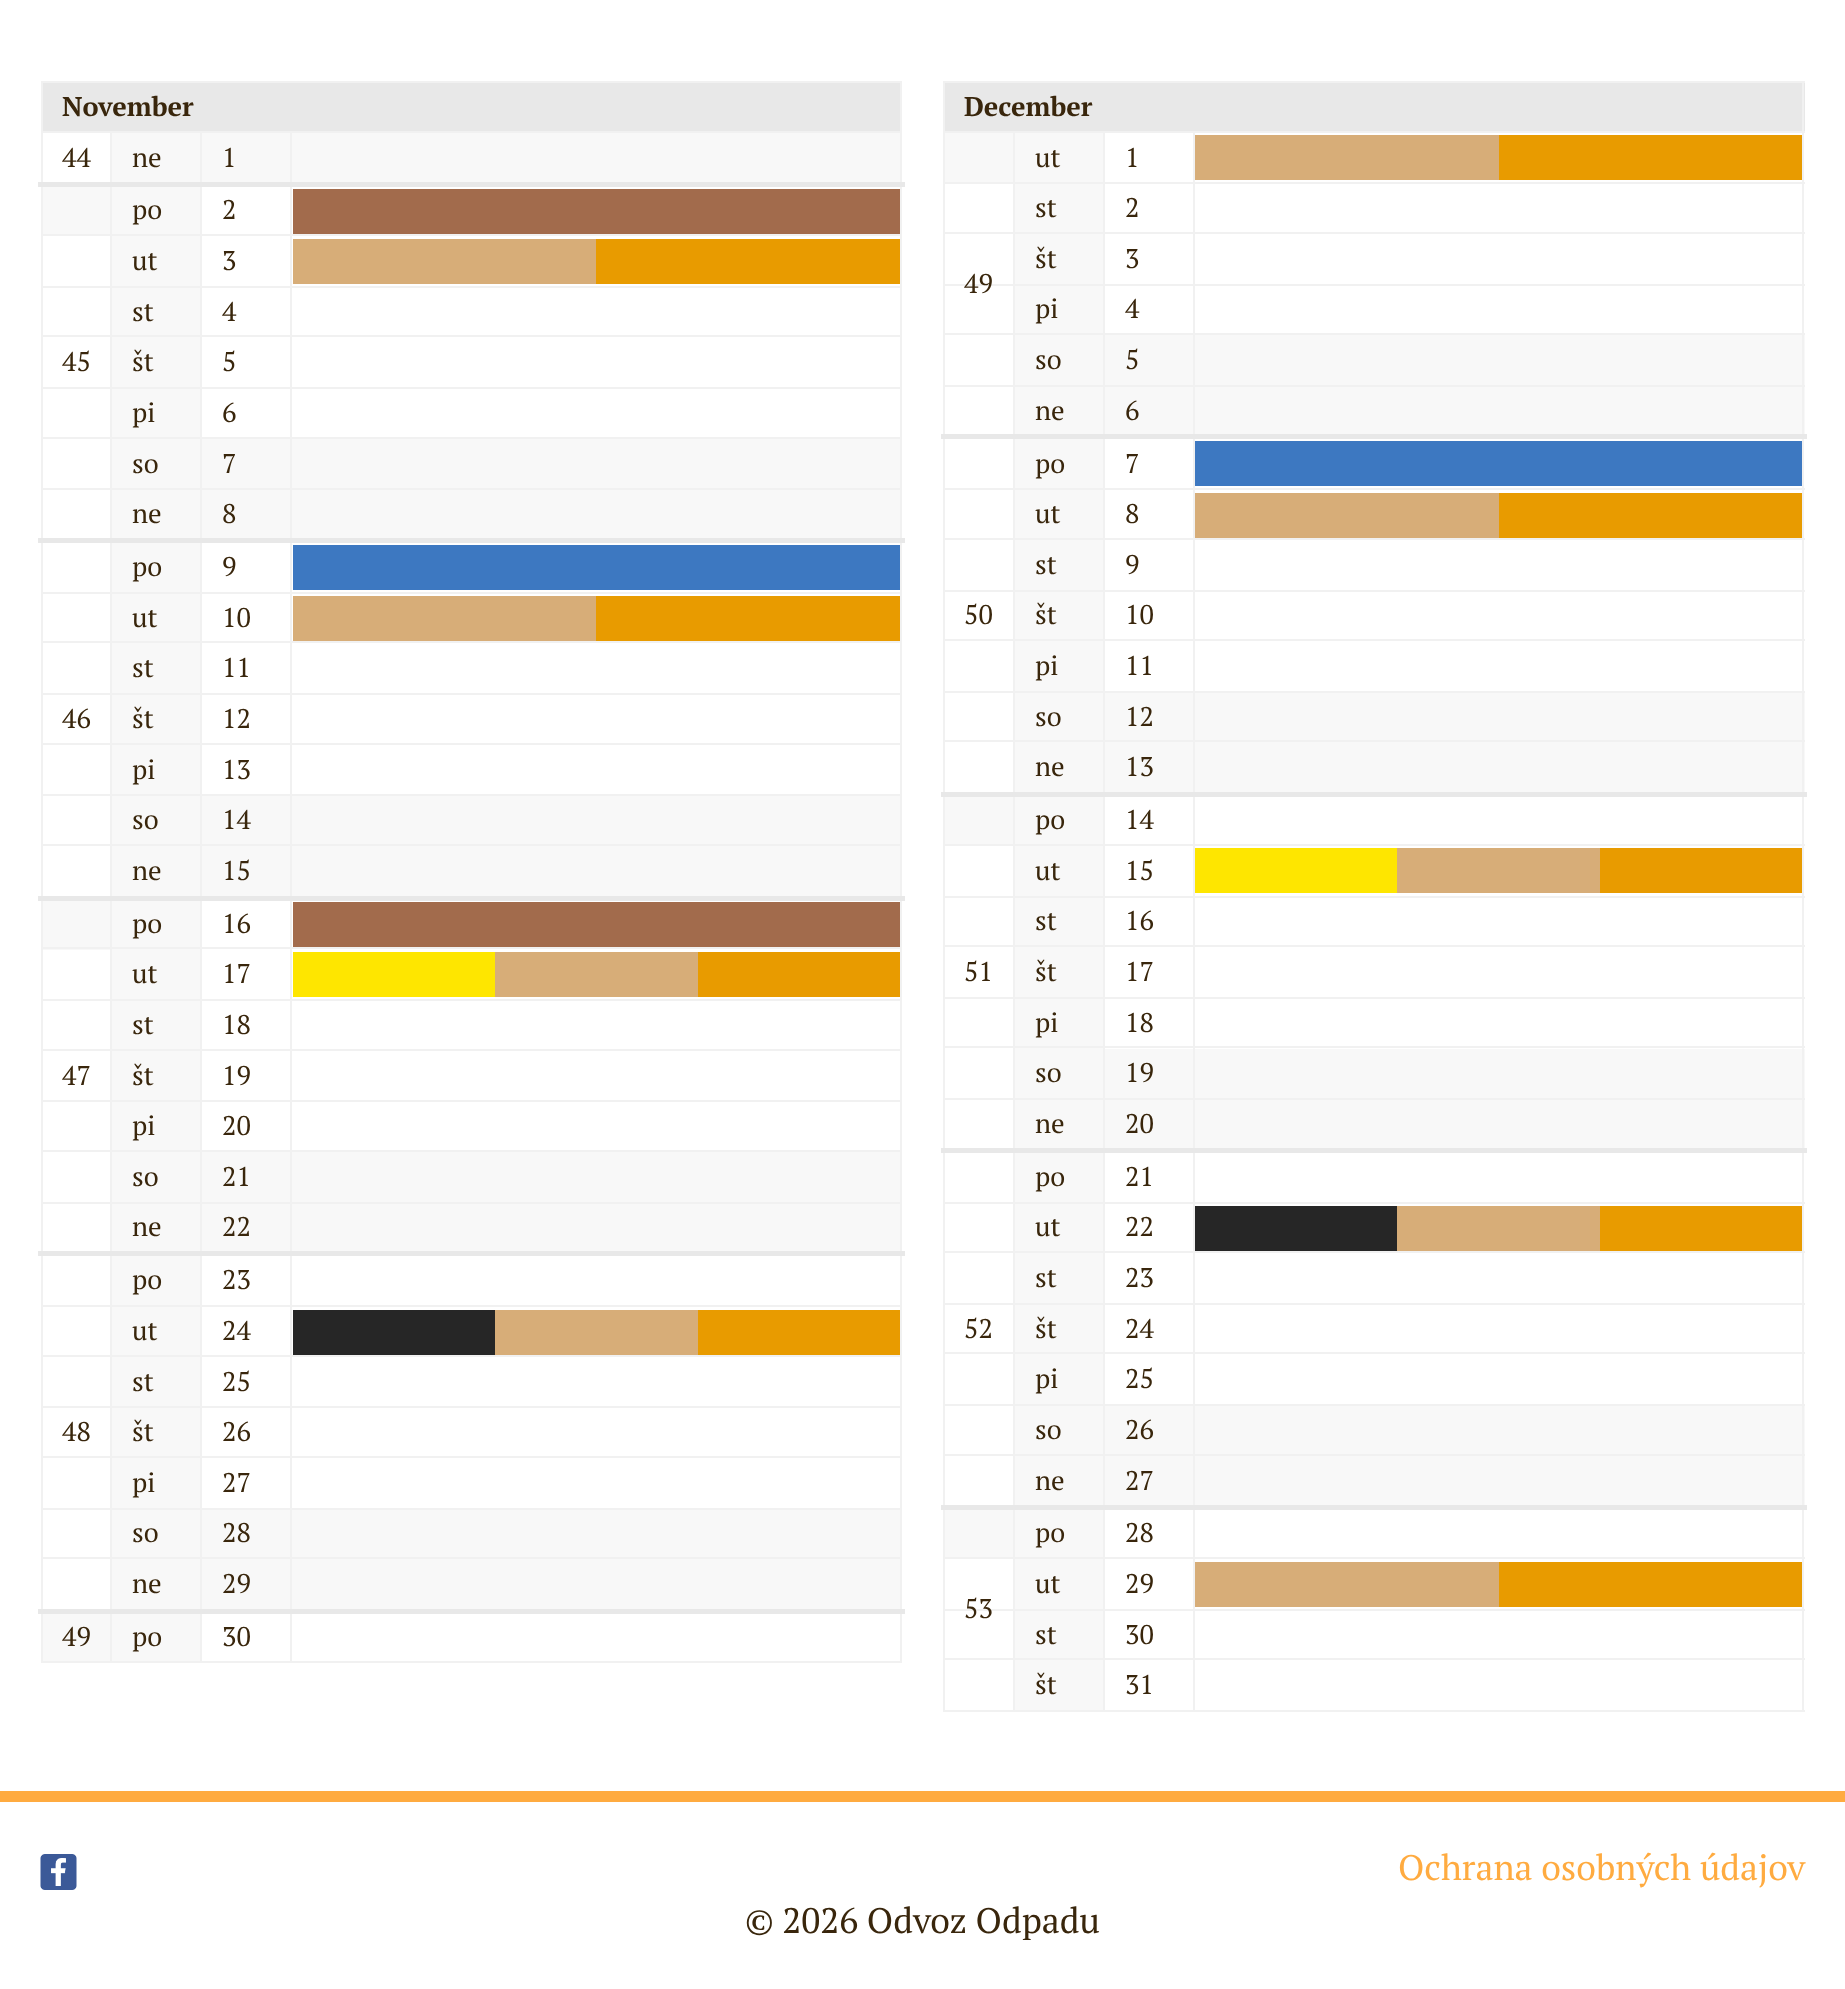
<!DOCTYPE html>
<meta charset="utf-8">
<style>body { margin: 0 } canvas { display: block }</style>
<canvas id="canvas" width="1845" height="1989"></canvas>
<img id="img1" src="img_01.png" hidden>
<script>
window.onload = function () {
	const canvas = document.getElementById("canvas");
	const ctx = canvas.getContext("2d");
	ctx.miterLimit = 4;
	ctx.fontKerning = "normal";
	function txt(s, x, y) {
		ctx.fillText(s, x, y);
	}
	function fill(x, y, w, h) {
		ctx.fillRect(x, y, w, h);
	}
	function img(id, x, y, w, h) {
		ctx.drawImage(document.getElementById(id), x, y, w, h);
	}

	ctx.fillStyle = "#FFFFFF";
	fill(0, 0, 1845, 1989);
	ctx.fillStyle = "#E8E8E8";
	fill(43, 83, 857, 48);
	ctx.fillStyle = "#F1F1F1";
	fill(41, 81, 861, 2);
	fill(41, 131, 861, 2);
	fill(900, 131, 2, 1532);
	fill(900, 81, 2, 52);
	fill(41, 1661, 861, 2);
	fill(41, 131, 2, 1532);
	fill(41, 81, 2, 52);
	ctx.fillStyle = "#F8F8F8";
	fill(112, 133, 88, 49);
	fill(202, 133, 88, 49);
	fill(292, 133, 608, 49);
	ctx.fillStyle = "#F1F1F1";
	fill(41, 234, 861, 2);
	fill(41, 286, 861, 2);
	ctx.fillStyle = "#F8F8F8";
	fill(112, 288, 88, 99);
	ctx.fillStyle = "#F1F1F1";
	fill(41, 335, 861, 2);
	fill(41, 387, 861, 2);
	fill(41, 437, 861, 2);
	fill(41, 488, 861, 2);
	fill(41, 592, 861, 2);
	ctx.fillStyle = "#F8F8F8";
	fill(112, 594, 88, 99);
	ctx.fillStyle = "#F1F1F1";
	fill(41, 641, 861, 2);
	fill(41, 693, 861, 2);
	fill(41, 743, 861, 2);
	fill(41, 794, 861, 2);
	fill(41, 844, 861, 2);
	ctx.fillStyle = "#F8F8F8";
	fill(112, 901, 88, 98);
	fill(43, 901, 67, 49);
	ctx.fillStyle = "#F1F1F1";
	fill(41, 947, 861, 2);
	fill(41, 999, 861, 2);
	fill(41, 1049, 861, 2);
	fill(41, 1100, 861, 2);
	fill(41, 1150, 861, 2);
	fill(41, 1202, 861, 2);
	fill(41, 1305, 861, 2);
	fill(41, 1355, 861, 2);
	fill(41, 1406, 861, 2);
	fill(41, 1456, 861, 2);
	fill(41, 1508, 861, 2);
	fill(41, 1557, 861, 2);
	fill(110, 131, 2, 1532);
	fill(200, 131, 2, 1532);
	fill(290, 131, 2, 1532);
	ctx.fillStyle = "#E8E8E8";
	fill(38, 182, 867, 5);
	ctx.fillStyle = "#F8F8F8";
	fill(112, 187, 88, 47);
	ctx.fillStyle = "#A26B4C";
	fill(293, 189, 607, 45);
	ctx.fillStyle = "#F8F8F8";
	fill(43, 187, 67, 47);
	fill(112, 236, 88, 50);
	ctx.fillStyle = "#D7AD78";
	fill(293, 239, 303, 45);
	ctx.fillStyle = "#E89B00";
	fill(596, 239, 304, 45);
	ctx.fillStyle = "#F8F8F8";
	fill(112, 389, 88, 48);
	fill(112, 439, 88, 49);
	fill(202, 439, 88, 49);
	fill(292, 439, 608, 49);
	fill(112, 490, 88, 48);
	fill(202, 490, 88, 48);
	fill(292, 490, 608, 48);
	ctx.fillStyle = "#E8E8E8";
	fill(38, 538, 867, 5);
	ctx.fillStyle = "#F8F8F8";
	fill(112, 543, 88, 49);
	ctx.fillStyle = "#3D78C1";
	fill(293, 545, 607, 45);
	ctx.fillStyle = "#D7AD78";
	fill(293, 596, 303, 45);
	ctx.fillStyle = "#E89B00";
	fill(596, 596, 304, 45);
	ctx.fillStyle = "#F8F8F8";
	fill(112, 695, 88, 48);
	fill(112, 745, 88, 49);
	fill(112, 796, 88, 48);
	fill(202, 796, 88, 48);
	fill(292, 796, 608, 48);
	fill(112, 846, 88, 50);
	fill(202, 846, 88, 50);
	fill(292, 846, 608, 50);
	ctx.fillStyle = "#E8E8E8";
	fill(38, 896, 867, 5);
	ctx.fillStyle = "#A26B4C";
	fill(293, 902, 607, 45);
	ctx.fillStyle = "#FEE600";
	fill(293, 952, 202, 45);
	ctx.fillStyle = "#D7AD78";
	fill(495, 952, 203, 45);
	ctx.fillStyle = "#E89B00";
	fill(698, 952, 202, 45);
	ctx.fillStyle = "#F8F8F8";
	fill(112, 1001, 88, 48);
	fill(112, 1051, 88, 49);
	fill(112, 1102, 88, 48);
	fill(112, 1152, 88, 50);
	fill(202, 1152, 88, 50);
	fill(292, 1152, 608, 50);
	fill(112, 1204, 88, 47);
	fill(202, 1204, 88, 47);
	fill(292, 1204, 608, 47);
	ctx.fillStyle = "#E8E8E8";
	fill(38, 1251, 867, 5);
	ctx.fillStyle = "#F8F8F8";
	fill(112, 1256, 88, 49);
	fill(112, 1307, 88, 48);
	ctx.fillStyle = "#262626";
	fill(293, 1310, 202, 45);
	ctx.fillStyle = "#D7AD78";
	fill(495, 1310, 203, 45);
	ctx.fillStyle = "#E89B00";
	fill(698, 1310, 202, 45);
	ctx.fillStyle = "#F8F8F8";
	fill(112, 1357, 88, 49);
	fill(112, 1408, 88, 48);
	fill(112, 1458, 88, 50);
	fill(112, 1510, 88, 47);
	fill(202, 1510, 88, 47);
	fill(292, 1510, 608, 47);
	fill(112, 1559, 88, 50);
	fill(202, 1559, 88, 50);
	fill(292, 1559, 608, 50);
	ctx.fillStyle = "#E8E8E8";
	fill(38, 1609, 867, 5);
	ctx.fillStyle = "#F8F8F8";
	fill(43, 1614, 67, 47);
	fill(112, 1614, 88, 47);
	ctx.fillStyle = "#E8E8E8";
	fill(945, 83, 860, 48);
	ctx.fillStyle = "#F1F1F1";
	fill(943, 81, 862, 2);
	fill(943, 131, 862, 2);
	ctx.fillStyle = "#F8F8F8";
	fill(1195, 335, 610, 50);
	fill(1195, 387, 610, 47);
	fill(1195, 693, 610, 99);
	fill(1195, 1049, 610, 49);
	fill(1195, 1100, 610, 48);
	fill(1195, 1406, 610, 48);
	fill(1195, 1456, 610, 49);
	ctx.fillStyle = "#F1F1F1";
	fill(1802, 131, 2, 1581);
	fill(1802, 81, 2, 52);
	fill(943, 1710, 862, 2);
	fill(943, 131, 2, 1581);
	fill(943, 81, 2, 52);
	fill(943, 182, 862, 2);
	ctx.fillStyle = "#F8F8F8";
	fill(1015, 133, 88, 49);
	ctx.fillStyle = "#D7AD78";
	fill(1195, 135, 304, 45);
	ctx.fillStyle = "#E89B00";
	fill(1499, 135, 303, 45);
	ctx.fillStyle = "#F8F8F8";
	fill(945, 133, 68, 49);
	ctx.fillStyle = "#F1F1F1";
	fill(943, 232, 862, 2);
	ctx.fillStyle = "#F8F8F8";
	fill(1015, 184, 88, 48);
	ctx.fillStyle = "#F1F1F1";
	fill(943, 284, 862, 2);
	ctx.fillStyle = "#F8F8F8";
	fill(1015, 234, 88, 50);
	ctx.fillStyle = "#F1F1F1";
	fill(943, 333, 862, 2);
	ctx.fillStyle = "#F8F8F8";
	fill(1015, 286, 88, 47);
	ctx.fillStyle = "#F1F1F1";
	fill(943, 385, 862, 2);
	ctx.fillStyle = "#F8F8F8";
	fill(1015, 335, 88, 50);
	fill(1105, 335, 88, 50);
	fill(1015, 387, 88, 47);
	fill(1105, 387, 88, 47);
	ctx.fillStyle = "#F1F1F1";
	fill(943, 488, 862, 2);
	fill(943, 538, 862, 2);
	fill(943, 590, 862, 2);
	fill(943, 639, 862, 2);
	fill(943, 691, 862, 2);
	ctx.fillStyle = "#F8F8F8";
	fill(1015, 693, 88, 99);
	fill(1105, 693, 88, 99);
	ctx.fillStyle = "#F1F1F1";
	fill(943, 740, 862, 2);
	fill(943, 844, 862, 2);
	fill(943, 896, 862, 2);
	fill(943, 945, 862, 2);
	fill(943, 997, 862, 2);
	ctx.fillStyle = "#F8F8F8";
	fill(1015, 999, 88, 99);
	ctx.fillStyle = "#F1F1F1";
	fill(943, 1046, 862, 2);
	fill(943, 1098, 862, 2);
	fill(943, 1202, 862, 2);
	fill(943, 1251, 862, 2);
	fill(943, 1303, 862, 2);
	ctx.fillStyle = "#F8F8F8";
	fill(1015, 1305, 88, 99);
	ctx.fillStyle = "#F1F1F1";
	fill(943, 1352, 862, 2);
	fill(943, 1404, 862, 2);
	fill(943, 1454, 862, 2);
	fill(943, 1557, 862, 2);
	fill(943, 1609, 862, 2);
	ctx.fillStyle = "#F8F8F8";
	fill(1015, 1611, 88, 99);
	ctx.fillStyle = "#F1F1F1";
	fill(943, 1658, 862, 2);
	fill(1013, 131, 2, 1581);
	fill(1103, 131, 2, 1581);
	fill(1193, 131, 2, 1581);
	ctx.fillStyle = "#E8E8E8";
	fill(941, 434, 866, 5);
	ctx.fillStyle = "#F8F8F8";
	fill(1015, 439, 88, 49);
	ctx.fillStyle = "#3D78C1";
	fill(1195, 441, 607, 45);
	ctx.fillStyle = "#F8F8F8";
	fill(1015, 490, 88, 48);
	ctx.fillStyle = "#D7AD78";
	fill(1195, 493, 304, 45);
	ctx.fillStyle = "#E89B00";
	fill(1499, 493, 303, 45);
	ctx.fillStyle = "#F8F8F8";
	fill(1015, 540, 88, 50);
	fill(1015, 592, 88, 47);
	fill(1015, 641, 88, 50);
	ctx.fillStyle = "#E8E8E8";
	fill(941, 792, 866, 5);
	ctx.fillStyle = "#F8F8F8";
	fill(1015, 797, 88, 47);
	fill(945, 797, 68, 47);
	fill(1015, 846, 88, 50);
	ctx.fillStyle = "#FEE600";
	fill(1195, 848, 202, 45);
	ctx.fillStyle = "#D7AD78";
	fill(1397, 848, 203, 45);
	ctx.fillStyle = "#E89B00";
	fill(1600, 848, 202, 45);
	ctx.fillStyle = "#F8F8F8";
	fill(1015, 898, 88, 47);
	fill(1015, 947, 88, 50);
	fill(1105, 1049, 88, 49);
	fill(1015, 1100, 88, 48);
	fill(1105, 1100, 88, 48);
	ctx.fillStyle = "#E8E8E8";
	fill(941, 1148, 866, 5);
	ctx.fillStyle = "#F8F8F8";
	fill(1015, 1153, 88, 49);
	fill(1015, 1204, 88, 47);
	ctx.fillStyle = "#262626";
	fill(1195, 1206, 202, 45);
	ctx.fillStyle = "#D7AD78";
	fill(1397, 1206, 203, 45);
	ctx.fillStyle = "#E89B00";
	fill(1600, 1206, 202, 45);
	ctx.fillStyle = "#F8F8F8";
	fill(1015, 1253, 88, 50);
	fill(1015, 1406, 88, 48);
	fill(1105, 1406, 88, 48);
	fill(1015, 1456, 88, 49);
	fill(1105, 1456, 88, 49);
	ctx.fillStyle = "#E8E8E8";
	fill(941, 1505, 866, 5);
	ctx.fillStyle = "#F8F8F8";
	fill(1015, 1510, 88, 47);
	fill(945, 1510, 68, 47);
	fill(1015, 1559, 88, 50);
	ctx.fillStyle = "#D7AD78";
	fill(1195, 1562, 304, 45);
	ctx.fillStyle = "#E89B00";
	fill(1499, 1562, 303, 45);
	ctx.fillStyle = "#FFAB40";
	fill(0, 1791, 1845, 11);
	img("img1", 40, 1854, 37, 36);
	ctx.font = "bold 27px PT Serif";
	ctx.fillStyle = "#39260C";
	txt("November", 62, 116);
	ctx.font = "27px PT Serif";
	txt("44", 62, 167);
	txt("ne", 132, 167);
	txt("1", 222, 167);
	txt("po", 132, 219);
	txt("2", 222, 219);
	txt("45", 62, 371);
	txt("ut", 132, 270);
	txt("3", 222, 270);
	txt("st", 132, 321);
	txt("4", 222, 321);
	txt("št", 132, 371);
	txt("5", 222, 371);
	txt("pi", 132, 422);
	txt("6", 222, 422);
	txt("so", 132, 473);
	txt("7", 222, 473);
	txt("ne", 132, 523);
	txt("8", 222, 523);
	txt("po", 132, 576);
	txt("9", 222, 576);
	txt("46", 62, 728);
	txt("ut", 132, 627);
	txt("10", 222, 627);
	txt("st", 132, 677);
	txt("11", 222, 677);
	txt("št", 132, 728);
	txt("12", 222, 728);
	txt("pi", 132, 779);
	txt("13", 222, 779);
	txt("so", 132, 829);
	txt("14", 222, 829);
	txt("ne", 132, 880);
	txt("15", 222, 880);
	txt("po", 132, 933);
	txt("16", 222, 933);
	txt("47", 62, 1085);
	txt("ut", 132, 983);
	txt("17", 222, 983);
	txt("st", 132, 1034);
	txt("18", 222, 1034);
	txt("št", 132, 1085);
	txt("19", 222, 1085);
	txt("pi", 132, 1135);
	txt("20", 222, 1135);
	txt("so", 132, 1186);
	txt("21", 222, 1186);
	txt("ne", 132, 1236);
	txt("22", 222, 1236);
	txt("po", 132, 1289);
	txt("23", 222, 1289);
	txt("48", 62, 1441);
	txt("ut", 132, 1340);
	txt("24", 222, 1340);
	txt("st", 132, 1391);
	txt("25", 222, 1391);
	txt("št", 132, 1441);
	txt("26", 222, 1441);
	txt("pi", 132, 1492);
	txt("27", 222, 1492);
	txt("so", 132, 1542);
	txt("28", 222, 1542);
	txt("ne", 132, 1593);
	txt("29", 222, 1593);
	txt("49", 62, 1646);
	txt("po", 132, 1646);
	txt("30", 222, 1646);
	ctx.font = "bold 27px PT Serif";
	txt("December", 964, 116);
	ctx.font = "27px PT Serif";
	txt("ut", 1035, 167);
	txt("1", 1125, 167);
	txt("49", 964, 293);
	txt("st", 1035, 217);
	txt("2", 1125, 217);
	txt("št", 1035, 268);
	txt("3", 1125, 268);
	txt("pi", 1035, 318);
	txt("4", 1125, 318);
	txt("so", 1035, 369);
	txt("5", 1125, 369);
	txt("ne", 1035, 420);
	txt("6", 1125, 420);
	txt("po", 1035, 473);
	txt("7", 1125, 473);
	txt("50", 964, 624);
	txt("ut", 1035, 523);
	txt("8", 1125, 523);
	txt("st", 1035, 574);
	txt("9", 1125, 574);
	txt("št", 1035, 624);
	txt("10", 1125, 624);
	txt("pi", 1035, 675);
	txt("11", 1125, 675);
	txt("so", 1035, 726);
	txt("12", 1125, 726);
	txt("ne", 1035, 776);
	txt("13", 1125, 776);
	txt("po", 1035, 829);
	txt("14", 1125, 829);
	txt("51", 964, 981);
	txt("ut", 1035, 880);
	txt("15", 1125, 880);
	txt("st", 1035, 930);
	txt("16", 1125, 930);
	txt("št", 1035, 981);
	txt("17", 1125, 981);
	txt("pi", 1035, 1032);
	txt("18", 1125, 1032);
	txt("so", 1035, 1082);
	txt("19", 1125, 1082);
	txt("ne", 1035, 1133);
	txt("20", 1125, 1133);
	txt("po", 1035, 1186);
	txt("21", 1125, 1186);
	txt("52", 964, 1338);
	txt("ut", 1035, 1236);
	txt("22", 1125, 1236);
	txt("st", 1035, 1287);
	txt("23", 1125, 1287);
	txt("št", 1035, 1338);
	txt("24", 1125, 1338);
	txt("pi", 1035, 1388);
	txt("25", 1125, 1388);
	txt("so", 1035, 1439);
	txt("26", 1125, 1439);
	txt("ne", 1035, 1490);
	txt("27", 1125, 1490);
	txt("po", 1035, 1542);
	txt("28", 1125, 1542);
	txt("53", 964, 1618);
	txt("ut", 1035, 1593);
	txt("29", 1125, 1593);
	txt("st", 1035, 1644);
	txt("30", 1125, 1644);
	txt("št", 1035, 1694);
	txt("31", 1125, 1694);
	ctx.font = "35.6px PT Serif";
	ctx.fillStyle = "#FFAB40";
	txt("Ochrana osobných údajov", 1398, 1880);
	ctx.fillStyle = "#39260C";
	txt("© 2026 Odvoz Odpadu", 745, 1933);
};
</script>
